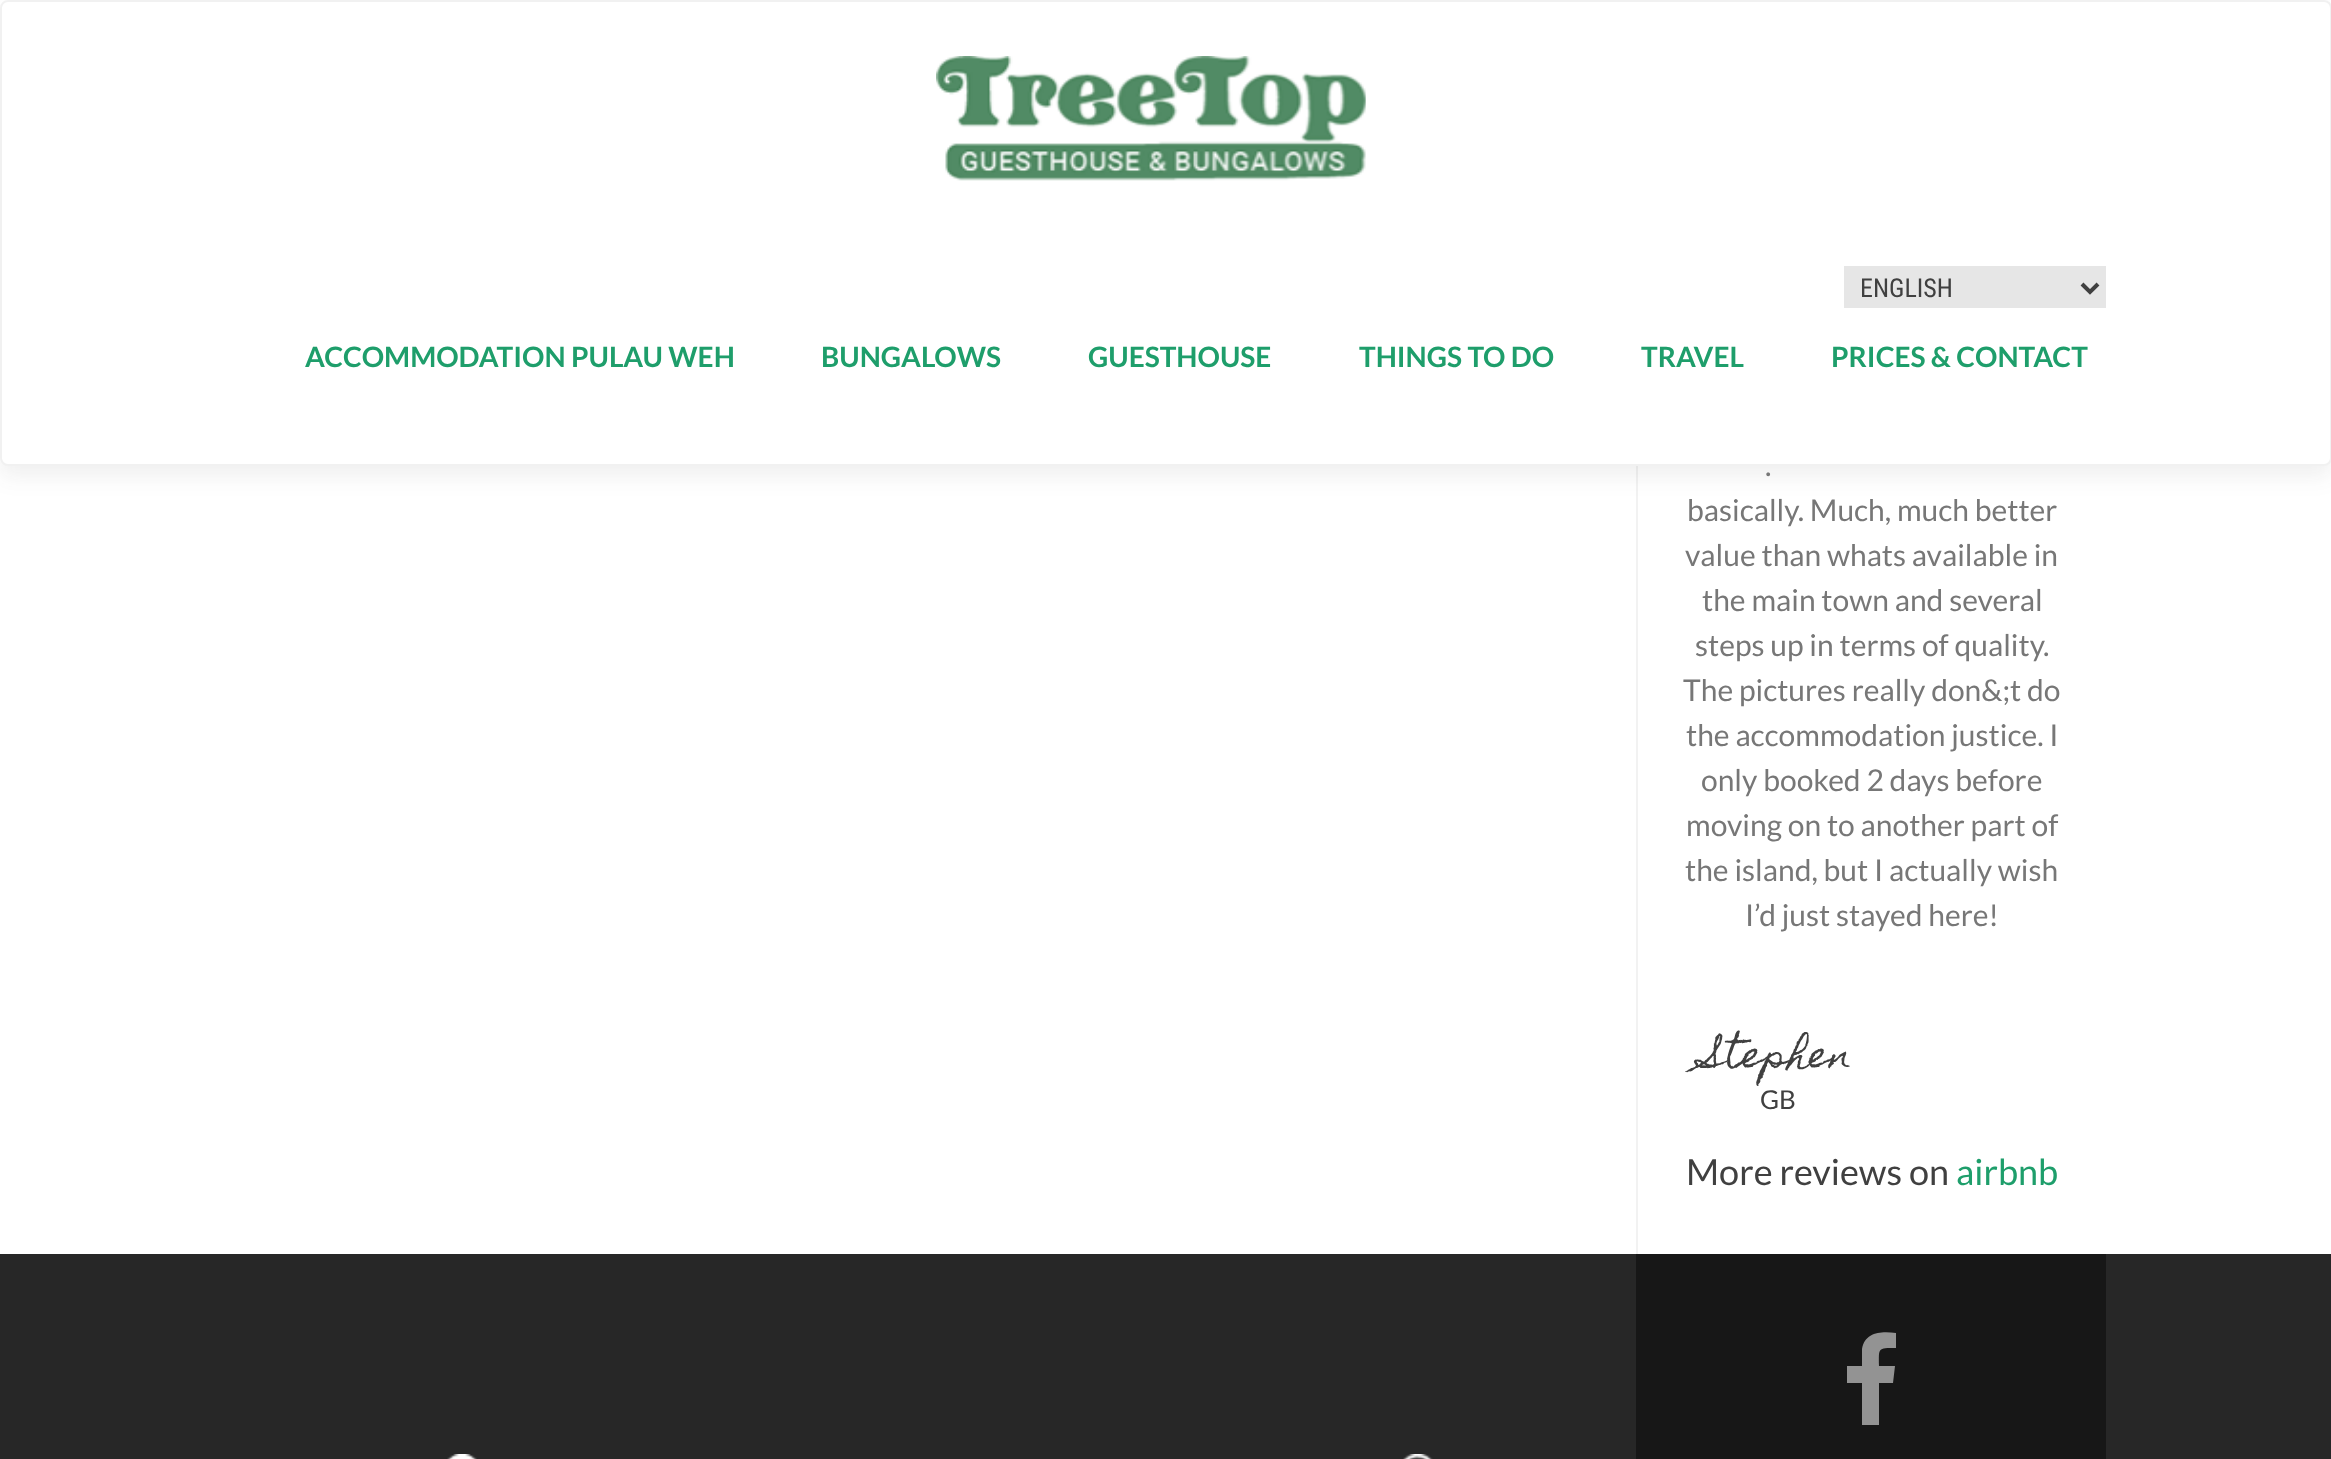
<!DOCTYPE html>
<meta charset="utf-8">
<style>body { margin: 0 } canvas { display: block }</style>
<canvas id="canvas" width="2331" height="1459"></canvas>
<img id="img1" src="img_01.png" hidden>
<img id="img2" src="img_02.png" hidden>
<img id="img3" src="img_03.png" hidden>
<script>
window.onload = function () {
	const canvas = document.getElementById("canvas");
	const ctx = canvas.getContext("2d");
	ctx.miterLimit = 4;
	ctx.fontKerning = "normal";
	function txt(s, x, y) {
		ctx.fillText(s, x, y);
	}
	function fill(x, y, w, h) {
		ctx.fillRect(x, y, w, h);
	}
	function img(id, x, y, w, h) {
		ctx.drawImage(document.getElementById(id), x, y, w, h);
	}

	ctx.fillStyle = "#FFFFFF";
	fill(0, 0, 2331, 1459);
	ctx.fillStyle = "#F2F2F2";
	fill(1636, 466, 2, 788);
	ctx.fillStyle = "rgba(50, 50, 50, 0.08)";
	ctx.filter = "blur(11px)";
	ctx.beginPath();
	ctx.roundRect(0, 10, 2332, 466, 8);
	ctx.fill();
	ctx.filter = "none";
	ctx.fillStyle = "#FFFFFF";
	ctx.beginPath();
	ctx.roundRect(1, 1, 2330, 464, 7);
	ctx.fill();
	ctx.strokeStyle = "#F1F1F1";
	ctx.lineWidth = 2;
	ctx.stroke();
	img("img1", 936, 56, 430, 125);
	ctx.fillStyle = "#E6E6E6";
	fill(1844, 266, 262, 42);
	ctx.beginPath();
	ctx.moveTo(2082, 284);
	ctx.lineTo(2090, 292);
	ctx.lineTo(2098, 284);
	ctx.strokeStyle = "#404040";
	ctx.lineWidth = 4;
	ctx.stroke();
	ctx.fillStyle = "#272727";
	fill(0, 1254, 2331, 205);
	img("img2", 447, 1454, 30, 5);
	img("img3", 1403, 1454, 30, 5);
	ctx.fillStyle = "#171717";
	fill(1636, 1254, 470, 205);
	ctx.fillStyle = "#939393";
	ctx.beginPath();
	ctx.moveTo(1896, 1333);
	ctx.lineTo(1896, 1348);
	ctx.bezierCurveTo(1877, 1348, 1879, 1348, 1879, 1366);
	ctx.lineTo(1895, 1366);
	ctx.lineTo(1893, 1383);
	ctx.lineTo(1879, 1383);
	ctx.lineTo(1879, 1425);
	ctx.lineTo(1862, 1425);
	ctx.lineTo(1862, 1383);
	ctx.lineTo(1847, 1383);
	ctx.lineTo(1847, 1366);
	ctx.lineTo(1862, 1366);
	ctx.lineTo(1862, 1349);
	ctx.bezierCurveTo(1865, 1332, 1881, 1331, 1896, 1333);
	ctx.closePath();
	ctx.fill();
	ctx.font = "26px Roboto Condensed";
	ctx.fillStyle = "#404040";
	txt("ENGLISH", 1860, 297);
	ctx.font = "bold 28px Lato";
	ctx.fillStyle = "#1E9E6B";
	txt("ACCOMMODATION PULAU WEH", 305, 367);
	txt("BUNGALOWS", 821, 367);
	txt("GUESTHOUSE", 1088, 367);
	txt("THINGS TO DO", 1359, 367);
	txt("TRAVEL", 1641, 367);
	txt("PRICES & CONTACT", 1831, 367);
	ctx.font = "30px Lato";
	ctx.fillStyle = "#777777";
	txt(".", 1765, 476);
	txt("basically. Much, much better", 1687, 521);
	txt("value than whats available in", 1685, 566);
	txt("the main town and several", 1702, 611);
	txt("steps up in terms of quality.", 1695, 656);
	txt("The pictures really don&;t do", 1683, 701);
	txt("the accommodation justice. I", 1686, 746);
	txt("only booked 2 days before", 1701, 791);
	txt("moving on to another part of", 1686, 836);
	txt("the island, but I actually wish", 1685, 881);
	txt("I’d just stayed here!", 1745, 926);
	ctx.font = "36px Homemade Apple";
	ctx.fillStyle = "#404040";
	txt("Stephen", 1704, 1067);
	ctx.font = "26px Lato";
	txt("GB", 1760, 1109);
	ctx.font = "36px Lato";
	txt("More reviews on", 1686, 1185);
	ctx.fillStyle = "#1E9E6B";
	txt("airbnb", 1956, 1185);
};
</script>
